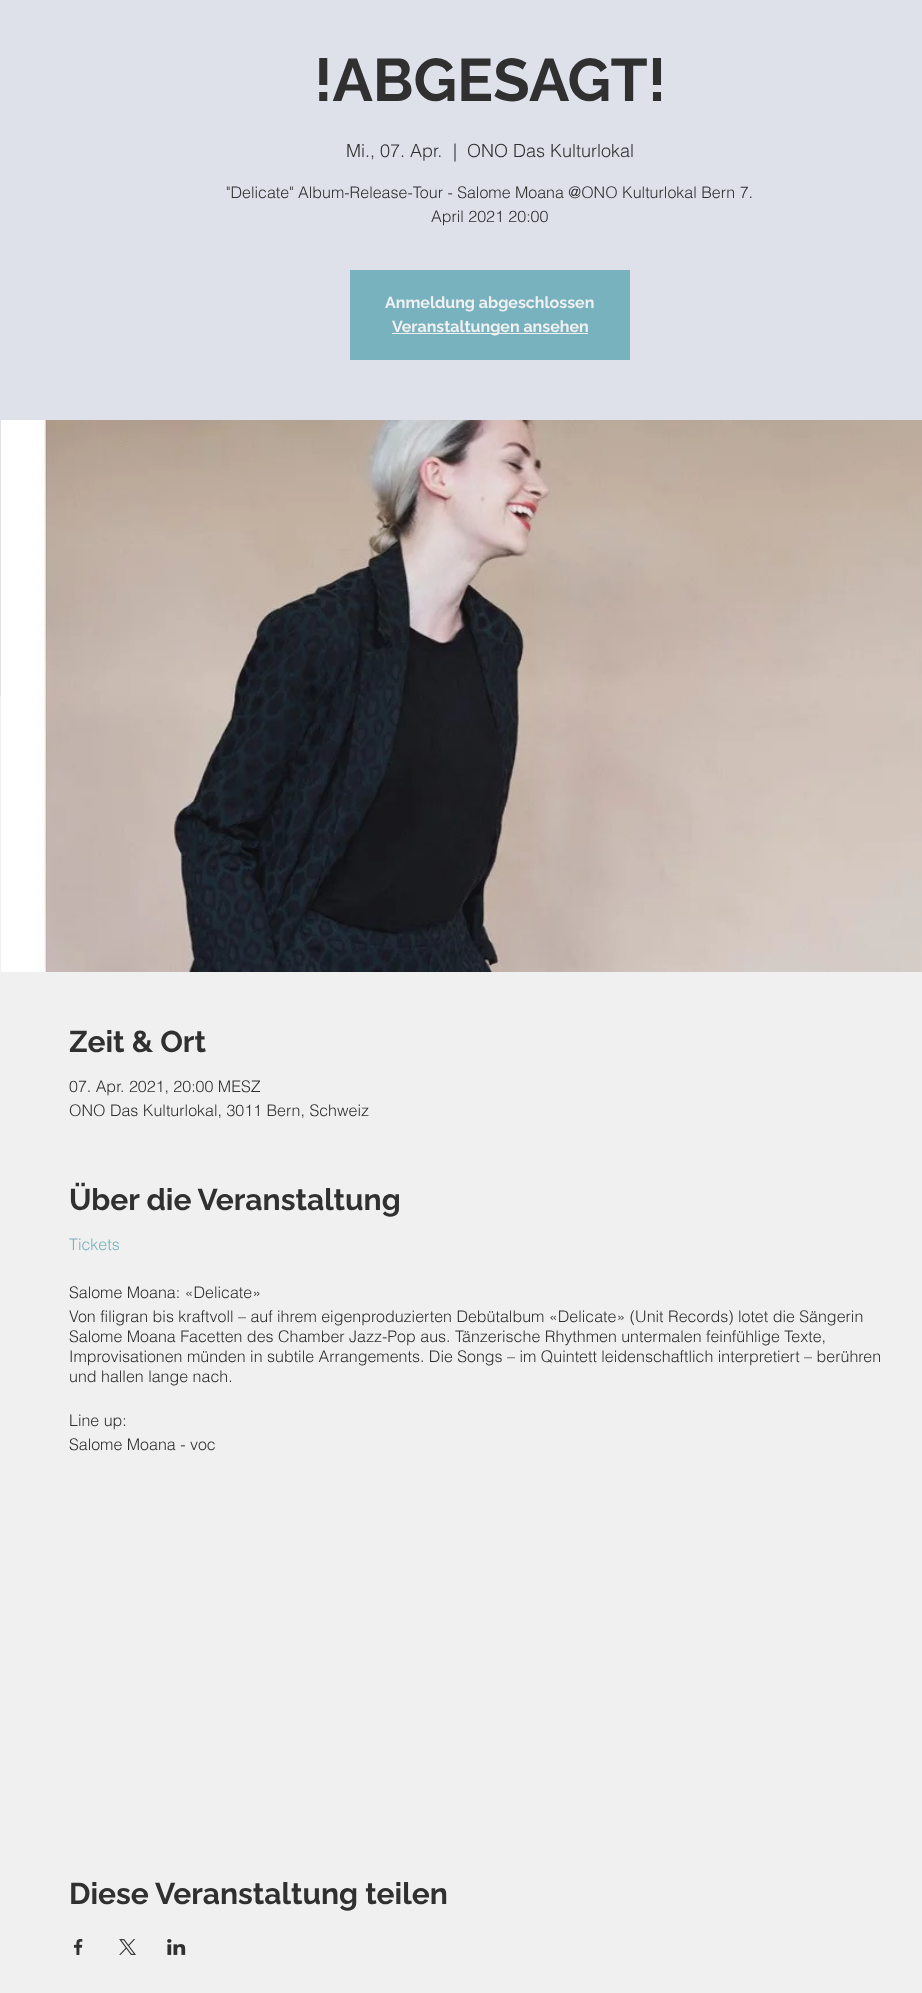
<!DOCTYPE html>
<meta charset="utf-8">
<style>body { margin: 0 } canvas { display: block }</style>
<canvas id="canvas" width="922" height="1993"></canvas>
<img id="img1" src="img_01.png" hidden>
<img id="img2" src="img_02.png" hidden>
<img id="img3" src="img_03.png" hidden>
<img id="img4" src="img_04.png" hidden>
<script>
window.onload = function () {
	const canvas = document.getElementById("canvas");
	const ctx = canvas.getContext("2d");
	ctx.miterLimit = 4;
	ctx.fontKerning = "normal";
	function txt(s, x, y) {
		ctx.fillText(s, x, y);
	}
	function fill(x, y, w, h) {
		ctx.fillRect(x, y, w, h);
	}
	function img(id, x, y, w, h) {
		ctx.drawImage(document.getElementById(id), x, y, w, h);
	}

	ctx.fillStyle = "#F0F0F0";
	fill(0, 0, 922, 1993);
	ctx.fillStyle = "#DEE0EA";
	fill(0, 0, 922, 696);
	ctx.fillStyle = "#78B2BE";
	fill(350, 270, 280, 90);
	ctx.fillStyle = "#F0F0F0";
	fill(392, 333, 196, 1);
	img("img1", 1, 420, 921, 552);
	img("img2", 74, 1939, 9, 16);
	img("img3", 119, 1939, 17, 16);
	img("img4", 167, 1939, 19, 16);
	ctx.font = "bold 60px Raleway";
	ctx.fillStyle = "#303030";
	txt("!ABGESAGT!", 314, 101);
	ctx.font = "300 18px helvetica";
	txt("Mi., 07. Apr.", 346, 157);
	txt("|", 453, 157);
	txt("ONO Das Kulturlokal", 467, 157);
	ctx.font = "300 16px helvetica";
	txt("\"Delicate\" Album-Release-Tour - Salome Moana @ONO Kulturlokal Bern 7.", 226, 198);
	txt("April 2021 20:00", 431, 222);
	ctx.font = "bold 16px Raleway";
	ctx.fillStyle = "#F0F0F0";
	txt("Anmeldung abgeschlossen", 385, 308);
	txt("Veranstaltungen ansehen", 392, 332);
	ctx.font = "bold 30px Raleway";
	ctx.fillStyle = "#303030";
	txt("Zeit & Ort", 69, 1052);
	ctx.font = "300 16px helvetica";
	txt("07. Apr. 2021, 20:00 MESZ", 69, 1092);
	txt("ONO Das Kulturlokal, 3011 Bern, Schweiz", 69, 1116);
	ctx.font = "bold 30px Raleway";
	txt("Über die Veranstaltung", 69, 1210);
	ctx.font = "300 16px helvetica";
	ctx.fillStyle = "#78B2BE";
	txt("Tickets", 69, 1250);
	ctx.fillStyle = "#303030";
	txt("Salome Moana: «Delicate»", 69, 1298);
	txt("Von filigran bis kraftvoll – auf ihrem eigenproduzierten Debütalbum «Delicate» (Unit Records) lotet die Sängerin", 69, 1322);
	txt("Salome Moana Facetten des Chamber Jazz-Pop aus. Tänzerische Rhythmen untermalen feinfühlige Texte,", 69, 1342);
	txt("Improvisationen münden in subtile Arrangements. Die Songs – im Quintett leidenschaftlich interpretiert – berühren", 69, 1362);
	txt("und hallen lange nach.", 69, 1382);
	txt("Line up:", 69, 1426);
	txt("Salome Moana - voc", 69, 1450);
	ctx.font = "bold 30px Raleway";
	txt("Diese Veranstaltung teilen", 69, 1904);
};
</script>
